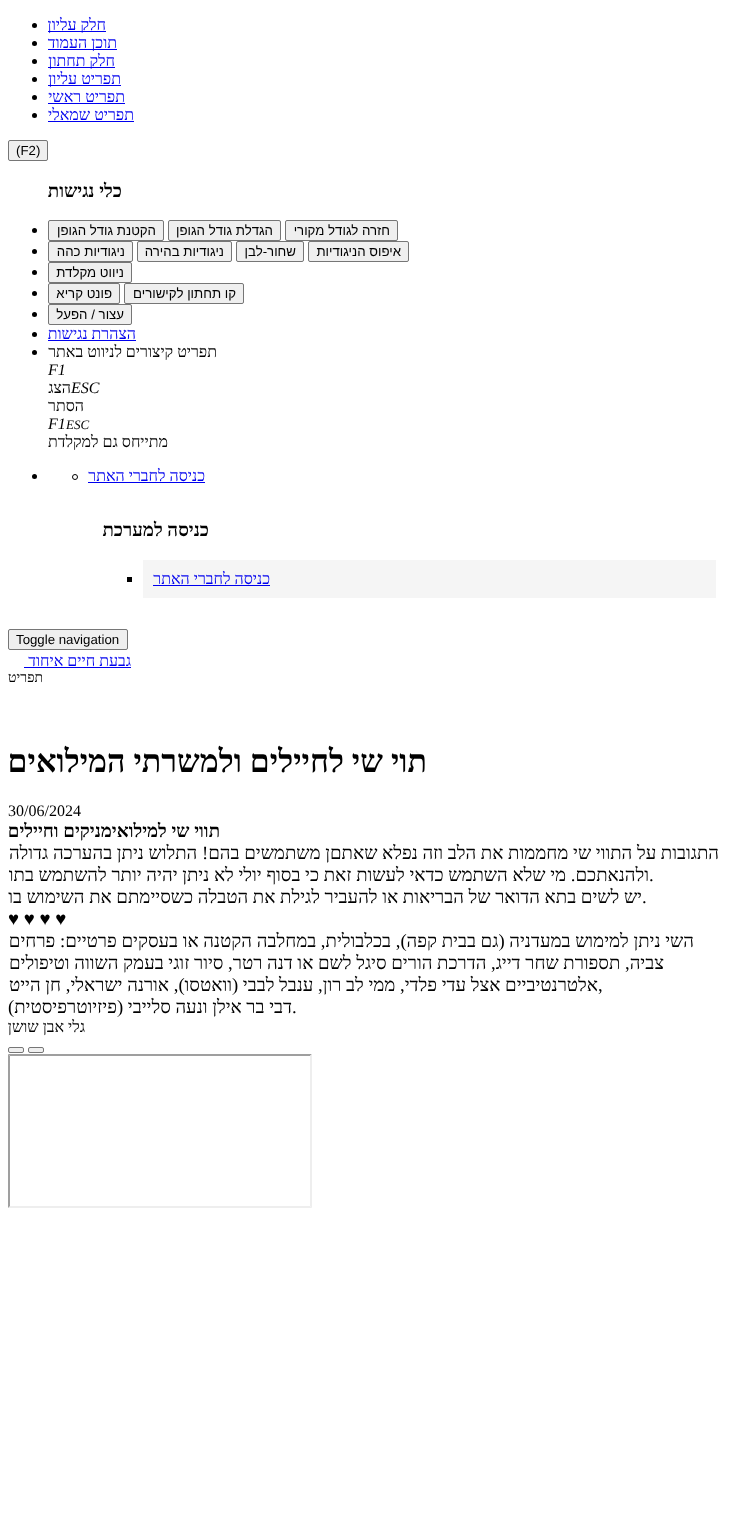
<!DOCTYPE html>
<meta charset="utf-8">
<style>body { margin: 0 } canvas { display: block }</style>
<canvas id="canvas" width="739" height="1537"></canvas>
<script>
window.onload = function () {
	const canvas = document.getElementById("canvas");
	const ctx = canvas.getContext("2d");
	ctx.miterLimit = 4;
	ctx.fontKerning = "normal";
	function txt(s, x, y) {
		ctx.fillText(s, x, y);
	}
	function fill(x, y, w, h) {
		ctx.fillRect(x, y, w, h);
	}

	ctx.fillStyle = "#FFFFFF";
	fill(0, 0, 739, 1537);
	ctx.fillStyle = "#0000EE";
	fill(48, 31, 58, 1);
	ctx.fillStyle = "#000000";
	ctx.beginPath();
	ctx.arc(34.5, 25.5, 2.5, 0, Math.PI * 2);
	ctx.fill();
	ctx.fillStyle = "#0000EE";
	fill(48, 49, 69, 1);
	ctx.fillStyle = "#000000";
	ctx.beginPath();
	ctx.arc(34.5, 43.5, 2.5, 0, Math.PI * 2);
	ctx.fill();
	ctx.fillStyle = "#0000EE";
	fill(48, 67, 67, 1);
	ctx.fillStyle = "#000000";
	ctx.beginPath();
	ctx.arc(34.5, 61.5, 2.5, 0, Math.PI * 2);
	ctx.fill();
	ctx.fillStyle = "#0000EE";
	fill(48, 85, 73, 1);
	ctx.fillStyle = "#000000";
	ctx.beginPath();
	ctx.arc(34.5, 79.5, 2.5, 0, Math.PI * 2);
	ctx.fill();
	ctx.fillStyle = "#0000EE";
	fill(48, 103, 77, 1);
	ctx.fillStyle = "#000000";
	ctx.beginPath();
	ctx.arc(34.5, 97.5, 2.5, 0, Math.PI * 2);
	ctx.fill();
	ctx.fillStyle = "#0000EE";
	fill(48, 121, 86, 1);
	ctx.fillStyle = "#000000";
	ctx.beginPath();
	ctx.arc(34.5, 115.5, 2.5, 0, Math.PI * 2);
	ctx.fill();
	ctx.fillStyle = "#EFEFEF";
	ctx.beginPath();
	ctx.roundRect(8.5, 140.5, 39, 20, 1.5);
	ctx.fill();
	ctx.strokeStyle = "#767676";
	ctx.stroke();
	ctx.beginPath();
	ctx.roundRect(285.5, 220.5, 112, 20, 1.5);
	ctx.fill();
	ctx.stroke();
	ctx.beginPath();
	ctx.roundRect(168.5, 220.5, 112, 20, 1.5);
	ctx.fill();
	ctx.stroke();
	ctx.beginPath();
	ctx.roundRect(48.5, 220.5, 115, 20, 1.5);
	ctx.fill();
	ctx.stroke();
	ctx.fillStyle = "#000000";
	ctx.beginPath();
	ctx.arc(34.5, 230.5, 2.5, 0, Math.PI * 2);
	ctx.fill();
	ctx.fillStyle = "#EFEFEF";
	ctx.beginPath();
	ctx.roundRect(308.5, 241.5, 100, 20, 1.5);
	ctx.fill();
	ctx.stroke();
	ctx.beginPath();
	ctx.roundRect(236.5, 241.5, 67, 20, 1.5);
	ctx.fill();
	ctx.stroke();
	ctx.beginPath();
	ctx.roundRect(137.5, 241.5, 94, 20, 1.5);
	ctx.fill();
	ctx.stroke();
	ctx.beginPath();
	ctx.roundRect(48.5, 241.5, 84, 20, 1.5);
	ctx.fill();
	ctx.stroke();
	ctx.fillStyle = "#000000";
	ctx.beginPath();
	ctx.arc(34.5, 251.5, 2.5, 0, Math.PI * 2);
	ctx.fill();
	ctx.fillStyle = "#EFEFEF";
	ctx.beginPath();
	ctx.roundRect(48.5, 262.5, 83, 20, 1.5);
	ctx.fill();
	ctx.stroke();
	ctx.fillStyle = "#000000";
	ctx.beginPath();
	ctx.arc(34.5, 272.5, 2.5, 0, Math.PI * 2);
	ctx.fill();
	ctx.fillStyle = "#EFEFEF";
	ctx.beginPath();
	ctx.roundRect(124.5, 283.5, 119, 20, 1.5);
	ctx.fill();
	ctx.stroke();
	ctx.beginPath();
	ctx.roundRect(48.5, 283.5, 71, 20, 1.5);
	ctx.fill();
	ctx.stroke();
	ctx.fillStyle = "#000000";
	ctx.beginPath();
	ctx.arc(34.5, 293.5, 2.5, 0, Math.PI * 2);
	ctx.fill();
	ctx.fillStyle = "#EFEFEF";
	ctx.beginPath();
	ctx.roundRect(48.5, 304.5, 83, 20, 1.5);
	ctx.fill();
	ctx.stroke();
	ctx.fillStyle = "#000000";
	ctx.beginPath();
	ctx.arc(34.5, 314.5, 2.5, 0, Math.PI * 2);
	ctx.fill();
	ctx.fillStyle = "#0000EE";
	fill(48, 340, 88, 1);
	ctx.fillStyle = "#000000";
	ctx.beginPath();
	ctx.arc(34.5, 334.5, 2.5, 0, Math.PI * 2);
	ctx.fill();
	ctx.beginPath();
	ctx.arc(34.5, 352.5, 2.5, 0, Math.PI * 2);
	ctx.fill();
	ctx.fillStyle = "#0000EE";
	fill(88, 482, 117, 1);
	ctx.beginPath();
	ctx.arc(75, 477, 2.5, 0, Math.PI * 2);
	ctx.strokeStyle = "#000000";
	ctx.stroke();
	ctx.fillStyle = "#F5F5F5";
	fill(143, 560, 573, 38);
	ctx.fillStyle = "#0000EE";
	fill(153, 585, 117, 1);
	ctx.fillStyle = "#000000";
	fill(127, 577, 5, 5);
	ctx.beginPath();
	ctx.arc(34.5, 476.5, 2.5, 0, Math.PI * 2);
	ctx.fill();
	ctx.fillStyle = "#EFEFEF";
	ctx.beginPath();
	ctx.roundRect(8.5, 629.5, 119, 20, 1.5);
	ctx.fill();
	ctx.strokeStyle = "#767676";
	ctx.stroke();
	ctx.fillStyle = "#0000EE";
	fill(24, 667, 107, 1);
	ctx.fillStyle = "#EFEFEF";
	ctx.beginPath();
	ctx.roundRect(28.5, 1047.5, 15, 5, 1.5);
	ctx.fill();
	ctx.stroke();
	ctx.beginPath();
	ctx.roundRect(8.5, 1047.5, 15, 5, 1.5);
	ctx.fill();
	ctx.stroke();
	ctx.fillStyle = "#9F9F9F";
	ctx.beginPath();
	ctx.moveTo(8, 1054);
	ctx.lineTo(312, 1054);
	ctx.lineTo(310, 1056);
	ctx.lineTo(10, 1056);
	ctx.closePath();
	ctx.fill();
	ctx.fillStyle = "#EEEEEE";
	ctx.beginPath();
	ctx.moveTo(312, 1054);
	ctx.lineTo(312, 1208);
	ctx.lineTo(310, 1206);
	ctx.lineTo(310, 1056);
	ctx.closePath();
	ctx.fill();
	ctx.beginPath();
	ctx.moveTo(312, 1208);
	ctx.lineTo(8, 1208);
	ctx.lineTo(10, 1206);
	ctx.lineTo(310, 1206);
	ctx.closePath();
	ctx.fill();
	ctx.fillStyle = "#9F9F9F";
	ctx.beginPath();
	ctx.moveTo(8, 1208);
	ctx.lineTo(8, 1054);
	ctx.lineTo(10, 1056);
	ctx.lineTo(10, 1206);
	ctx.closePath();
	ctx.fill();
	ctx.direction = "rtl";
	ctx.font = "16px Liberation Serif";
	ctx.fillStyle = "#0000EE";
	txt("חלק עליון", 106, 30);
	txt("תוכן העמוד", 117, 48);
	txt("חלק תחתון", 115, 66);
	txt("תפריט עליון", 121, 84);
	txt("תפריט ראשי", 125, 102);
	txt("תפריט שמאלי", 134, 120);
	ctx.direction = "ltr";
	ctx.font = "13.25px Liberation Sans";
	ctx.fillStyle = "#000000";
	txt("(F2)", 16, 155);
	ctx.direction = "rtl";
	ctx.font = "bold 18.75px Liberation Serif";
	txt("כלי נגישות", 122, 197);
	ctx.font = "13.25px Liberation Sans";
	txt("חזרה לגודל מקורי", 390, 235);
	txt("הגדלת גודל הגופן", 273, 235);
	txt("הקטנת גודל הגופן", 156, 235);
	txt("איפוס הניגודיות", 401, 256);
	txt("שחור-לבן", 296, 256);
	txt("ניגודיות בהירה", 224, 256);
	txt("ניגודיות כהה", 125, 256);
	txt("ניווט מקלדת", 124, 277);
	txt("קו תחתון לקישורים", 236, 298);
	txt("פונט קריא", 112, 298);
	txt("עצור / הפעל", 124, 319);
	ctx.font = "16px Liberation Serif";
	ctx.fillStyle = "#0000EE";
	txt("הצהרת נגישות", 136, 339);
	ctx.fillStyle = "#000000";
	txt("תפריט קיצורים לניווט באתר", 217, 357);
	ctx.direction = "ltr";
	ctx.font = "italic 16px Liberation Serif";
	txt("F1", 48, 375);
	txt("ESC", 71, 393);
	ctx.direction = "rtl";
	ctx.font = "16px Liberation Serif";
	txt("הצג", 71, 393);
	txt("הסתר", 84, 411);
	ctx.direction = "ltr";
	ctx.font = "italic 13px Liberation Serif";
	txt("ESC", 66, 429);
	ctx.font = "italic 16px Liberation Serif";
	txt("F1", 48, 429);
	ctx.direction = "rtl";
	ctx.font = "16px Liberation Serif";
	txt("מתייחס גם למקלדת", 168, 447);
	ctx.fillStyle = "#0000EE";
	txt("כניסה לחברי האתר", 205, 481);
	ctx.font = "bold 18.75px Liberation Serif";
	ctx.fillStyle = "#000000";
	txt("כניסה למערכת", 209, 536);
	ctx.font = "16px Liberation Serif";
	ctx.fillStyle = "#0000EE";
	txt("כניסה לחברי האתר", 270, 584);
	ctx.direction = "ltr";
	ctx.font = "13.25px Liberation Sans";
	ctx.fillStyle = "#000000";
	txt("Toggle navigation", 16, 644);
	ctx.direction = "rtl";
	ctx.font = "16px Liberation Serif";
	ctx.fillStyle = "#0000EE";
	txt("גבעת חיים איחוד", 131, 666);
	ctx.font = "14px Liberation Serif";
	ctx.fillStyle = "#000000";
	txt("תפריט", 43, 682);
	ctx.font = "bold 32px Liberation Serif";
	txt("תוי שי לחיילים ולמשרתי המילואים", 427, 772);
	ctx.direction = "ltr";
	ctx.font = "16px Liberation Serif";
	txt("30/06/2024", 8, 816);
	ctx.direction = "rtl";
	ctx.font = "bold 18.65px Liberation Serif";
	txt("תווי שי למילואימניקים וחיילים", 220, 837);
	ctx.font = "18.65px Liberation Serif";
	txt("התגובות על התווי שי מחממות את הלב וזה נפלא שאתםן משתמשים בהם! התלוש ניתן בהערכה גדולה", 719, 859);
	ctx.direction = "ltr";
	txt(".", 649, 881);
	ctx.direction = "rtl";
	txt("ולהנאתכם. מי שלא השתמש כדאי לעשות זאת כי בסוף יולי לא ניתן יהיה יותר להשתמש בתו", 649, 881);
	ctx.direction = "ltr";
	txt(".", 642, 903);
	ctx.direction = "rtl";
	txt("יש לשים בתא הדואר של הבריאות או להעביר לגילת את הטבלה כשסיימתם את השימוש בו", 642, 903);
	ctx.direction = "ltr";
	txt("♥ ♥ ♥ ♥", 8, 925);
	ctx.direction = "rtl";
	txt("השי ניתן למימוש במעדניה (גם בבית קפה), בכלבולית, במחלבה הקטנה או בעסקים פרטיים: פרחים", 694, 947);
	txt("צביה, תספורת שחר דייג, הדרכת הורים סיגל לשם או דנה רטר, סיור זוגי בעמק השווה וטיפולים", 664, 969);
	ctx.direction = "ltr";
	txt(",", 598, 991);
	ctx.direction = "rtl";
	txt("אלטרנטיביים אצל עדי פלדי, ממי לב רון, ענבל לבבי (וואטסו), אורנה ישראלי, חן הייט", 598, 991);
	ctx.direction = "ltr";
	txt(".", 292, 1013);
	ctx.direction = "rtl";
	txt("דבי בר אילן ונעה סלייבי (פיזיוטרפיסטית)", 292, 1013);
	ctx.font = "16px Liberation Serif";
	txt("גלי אבן שושן", 85, 1032);
};
</script>
